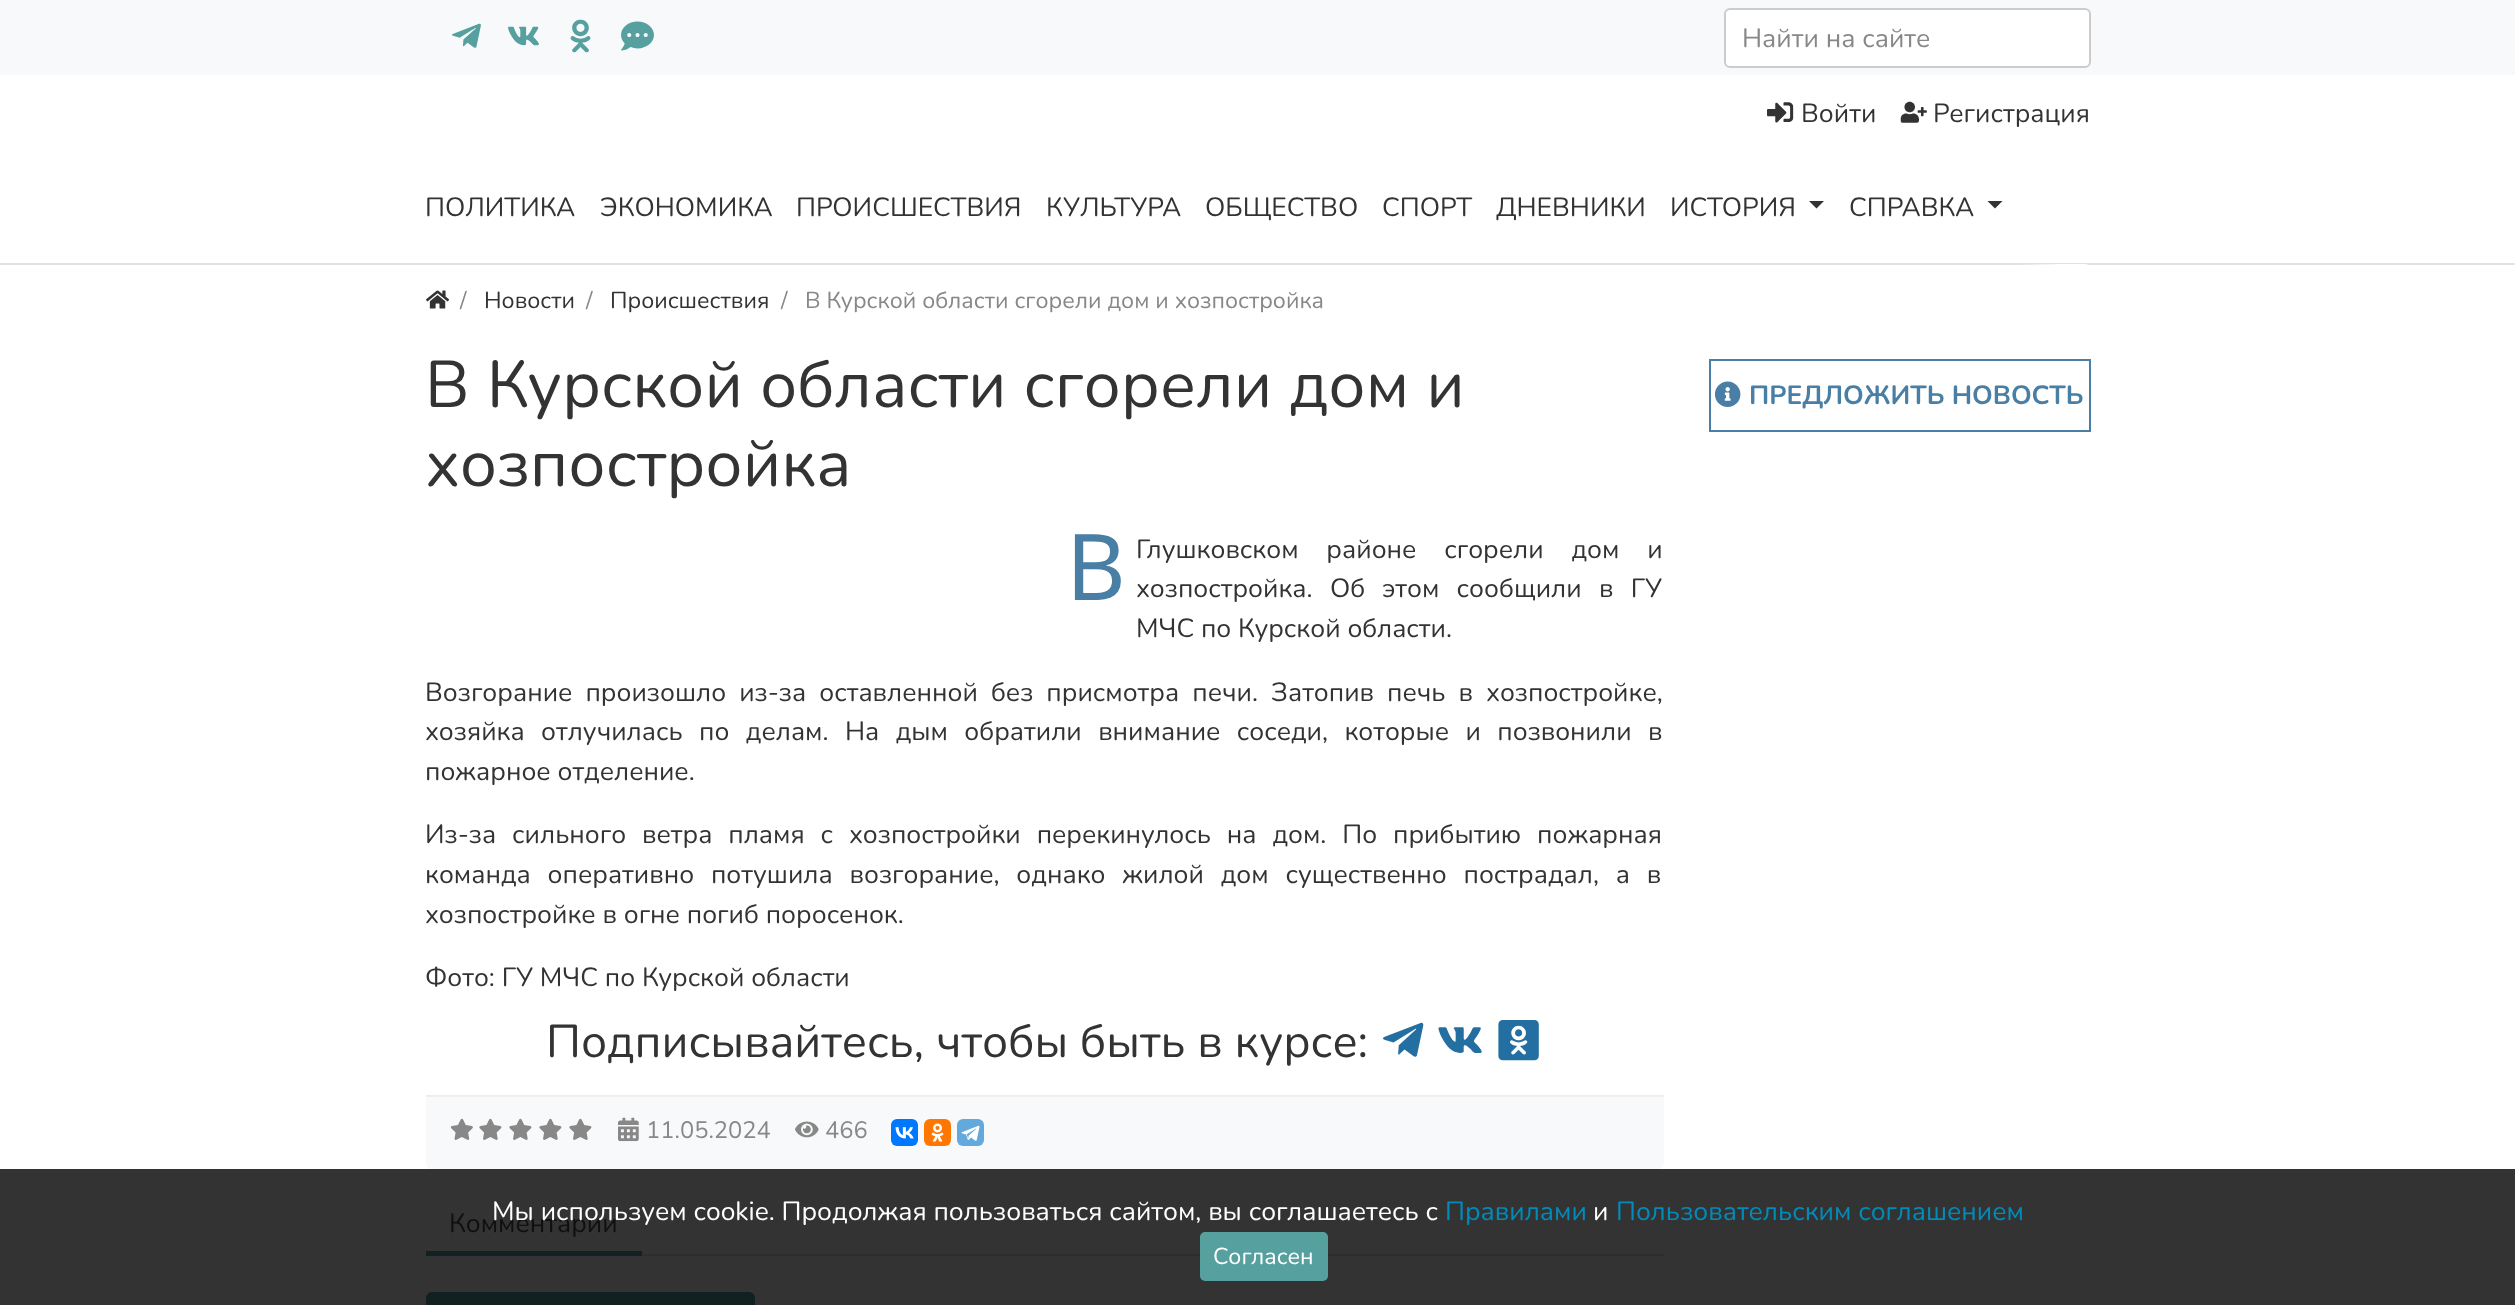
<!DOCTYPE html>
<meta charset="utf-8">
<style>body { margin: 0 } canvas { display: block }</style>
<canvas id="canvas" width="2515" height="1305"></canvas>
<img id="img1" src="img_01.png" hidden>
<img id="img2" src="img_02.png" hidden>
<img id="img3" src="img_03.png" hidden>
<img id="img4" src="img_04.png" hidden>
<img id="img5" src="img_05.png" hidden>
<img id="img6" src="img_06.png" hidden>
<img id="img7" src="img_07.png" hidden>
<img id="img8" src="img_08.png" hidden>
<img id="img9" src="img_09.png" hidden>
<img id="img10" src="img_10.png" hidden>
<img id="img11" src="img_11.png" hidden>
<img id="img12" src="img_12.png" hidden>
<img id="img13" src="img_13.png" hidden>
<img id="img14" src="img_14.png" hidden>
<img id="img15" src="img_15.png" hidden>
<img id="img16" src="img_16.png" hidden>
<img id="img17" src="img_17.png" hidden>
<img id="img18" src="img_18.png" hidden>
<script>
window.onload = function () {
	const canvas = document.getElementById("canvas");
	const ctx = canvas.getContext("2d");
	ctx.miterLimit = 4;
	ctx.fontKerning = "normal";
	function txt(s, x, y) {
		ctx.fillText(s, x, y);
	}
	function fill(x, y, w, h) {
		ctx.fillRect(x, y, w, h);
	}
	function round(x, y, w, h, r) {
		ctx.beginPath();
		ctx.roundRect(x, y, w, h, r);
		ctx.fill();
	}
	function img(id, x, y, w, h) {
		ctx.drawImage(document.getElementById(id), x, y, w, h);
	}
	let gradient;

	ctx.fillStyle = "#FFFFFF";
	fill(0, 0, 2515, 1305);
	ctx.fillStyle = "#333333";
	fill(0, 1169, 2515, 136);
	ctx.fillStyle = "#F8F9FA";
	fill(0, 0, 2515, 75);
	img("img1", 452, 23, 29, 25);
	img("img2", 508, 26, 31, 20);
	img("img3", 570, 19, 21, 34);
	img("img4", 621, 21, 33, 30);
	ctx.fillStyle = "#FFFFFF";
	ctx.beginPath();
	ctx.roundRect(1725, 9, 365, 58, 5);
	ctx.fill();
	ctx.strokeStyle = "#CCCCCC";
	ctx.lineWidth = 2;
	ctx.stroke();
	img("img5", 1767, 102, 27, 21);
	img("img6", 1900, 101, 27, 22);
	ctx.fillStyle = "#DEE2E6";
	fill(0, 263, 2515, 2);
	ctx.fillStyle = "#333333";
	ctx.beginPath();
	ctx.moveTo(1809, 201);
	ctx.lineTo(1824, 201);
	ctx.lineTo(1816.5, 208.5);
	ctx.closePath();
	ctx.fill();
	ctx.beginPath();
	ctx.moveTo(1987.5, 201);
	ctx.lineTo(2002.5, 201);
	ctx.lineTo(1995, 208.5);
	ctx.closePath();
	ctx.fill();
	img("img7", 426, 290, 23, 19);
	gradient = ctx.createLinearGradient(2091, 299, 2019, 299);
	gradient.addColorStop(0.4, "#FFFFFF");
	gradient.addColorStop(1, "rgba(255, 255, 255, 0)");
	ctx.fillStyle = gradient;
	ctx.beginPath();
	ctx.roundRect(2019, 264, 72, 71, [0, 6, 6, 0]);
	ctx.fill();
	img("img8", 1383, 1022, 41, 35);
	img("img9", 1438, 1027, 44, 26);
	img("img10", 1498, 1020, 41, 41);
	ctx.fillStyle = "#F8F9FA";
	ctx.beginPath();
	ctx.roundRect(426, 1095, 1238, 74, [0, 0, 6, 6]);
	ctx.fill();
	ctx.fillStyle = "#EEEEEE";
	fill(426, 1095, 1238, 2);
	img("img11", 450, 1118, 23, 22);
	img("img12", 479, 1118, 23, 22);
	img("img12", 509, 1118, 23, 22);
	img("img12", 539, 1118, 23, 22);
	img("img12", 569, 1118, 23, 22);
	img("img13", 618, 1117, 21, 25);
	img("img14", 795, 1121, 24, 17);
	ctx.fillStyle = "#0077FF";
	round(891, 1119, 27, 27, 6);
	img("img15", 895, 1127, 19, 12);
	ctx.fillStyle = "#FF7700";
	round(924, 1119, 27, 27, 6);
	img("img16", 931, 1123, 13, 19);
	ctx.fillStyle = "#64A9DC";
	round(957, 1119, 27, 27, 6);
	img("img17", 961, 1125, 19, 16);
	ctx.fillStyle = "#2C2D2E";
	fill(642, 1254, 1022, 2);
	ctx.fillStyle = "#112020";
	fill(426, 1251, 216, 5);
	ctx.beginPath();
	ctx.roundRect(427, 1293, 327, 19, 5);
	ctx.fill();
	ctx.strokeStyle = "#112020";
	ctx.stroke();
	ctx.strokeStyle = "#497FA4";
	ctx.strokeRect(1710, 360, 380, 71);
	img("img18", 1714, 381, 27, 26);
	ctx.fillStyle = "#56A1A0";
	ctx.beginPath();
	ctx.roundRect(1201, 1233, 126, 47, 4);
	ctx.fill();
	ctx.strokeStyle = "#56A1A0";
	ctx.stroke();
	ctx.font = "26.4px Nunito";
	ctx.fillStyle = "#888888";
	txt("Найти на сайте", 1742, 47);
	ctx.fillStyle = "#333333";
	txt("Войти", 1801, 122);
	txt("Регистрация", 1933, 122);
	txt("ПОЛИТИКА", 425, 216);
	txt("ЭКОНОМИКА", 600, 216);
	txt("ПРОИСШЕСТВИЯ", 796, 216);
	txt("КУЛЬТУРА", 1046, 216);
	txt("ОБЩЕСТВО", 1205, 216);
	txt("СПОРТ", 1382, 216);
	txt("ДНЕВНИКИ", 1496, 216);
	txt("ИСТОРИЯ", 1670, 216);
	txt("СПРАВКА", 1849, 216);
	ctx.font = "23.1px Nunito";
	ctx.fillStyle = "#888888";
	txt("/", 460, 308);
	ctx.fillStyle = "#333333";
	txt("Новости", 484, 308);
	ctx.fillStyle = "#888888";
	txt("/", 586, 308);
	ctx.fillStyle = "#333333";
	txt("Происшествия", 610, 308);
	ctx.fillStyle = "#888888";
	txt("/", 781, 308);
	txt("В Курской области сгорели дом и хозпостройка", 805, 308);
	ctx.font = "66px Nunito";
	ctx.fillStyle = "#333333";
	txt("В Курской области сгорели дом и", 425, 407);
	txt("хозпостройка", 425, 486);
	ctx.font = "92px Noto Sans";
	ctx.fillStyle = "#497FA4";
	txt("В", 1066, 600);
	ctx.wordSpacing = "21px";
	ctx.font = "26.4px Nunito";
	ctx.fillStyle = "#333333";
	txt("Глушковском районе сгорели дом и", 1136, 558);
	ctx.wordSpacing = "10.5px";
	txt("хозпостройка. Об этом сообщили в ГУ", 1136, 597);
	ctx.wordSpacing = "0px";
	txt("МЧС по Курской области.", 1136, 637);
	ctx.wordSpacing = "6.25px";
	txt("Возгорание произошло из-за оставленной без присмотра печи. Затопив печь в хозпостройке,", 425, 701);
	ctx.wordSpacing = "9.6px";
	txt("хозяйка отлучилась по делам. На дым обратили внимание соседи, которые и позвонили в", 425, 740);
	ctx.wordSpacing = "0px";
	txt("пожарное отделение.", 425, 780);
	ctx.wordSpacing = "9.1px";
	txt("Из-за сильного ветра пламя с хозпостройки перекинулось на дом. По прибытию пожарная", 425, 843);
	ctx.wordSpacing = "10px";
	txt("команда оперативно потушила возгорание, однако жилой дом существенно пострадал, а в", 425, 883);
	ctx.wordSpacing = "0px";
	txt("хозпостройке в огне погиб поросенок.", 425, 923);
	txt("Фото: ГУ МЧС по Курской области", 425, 986);
	ctx.font = "46.25px Nunito";
	txt("Подписывайтесь, чтобы быть в курсе:", 546, 1057);
	ctx.font = "23.75px Nunito";
	ctx.fillStyle = "#888888";
	txt("11.05.2024", 646, 1138);
	txt("466", 825, 1138);
	ctx.font = "26.4px Nunito";
	ctx.fillStyle = "#0F1011";
	txt("Комментарии", 449, 1232);
	ctx.font = "bold 26.4px Nunito";
	ctx.fillStyle = "#497FA4";
	txt("ПРЕДЛОЖИТЬ НОВОСТЬ", 1749, 404);
	ctx.font = "26.4px Nunito";
	ctx.fillStyle = "#FFFFFF";
	txt("Мы используем сookie. Продолжая пользоваться сайтом, вы соглашаетесь с", 492, 1220);
	ctx.fillStyle = "#008CBA";
	txt("Правилами", 1445, 1220);
	ctx.fillStyle = "#FFFFFF";
	txt("и", 1593, 1220);
	ctx.fillStyle = "#008CBA";
	txt("Пользовательским соглашением", 1616, 1220);
	ctx.font = "23.1px Nunito";
	ctx.fillStyle = "#FFFFFF";
	txt("Согласен", 1213, 1264);
};
</script>
